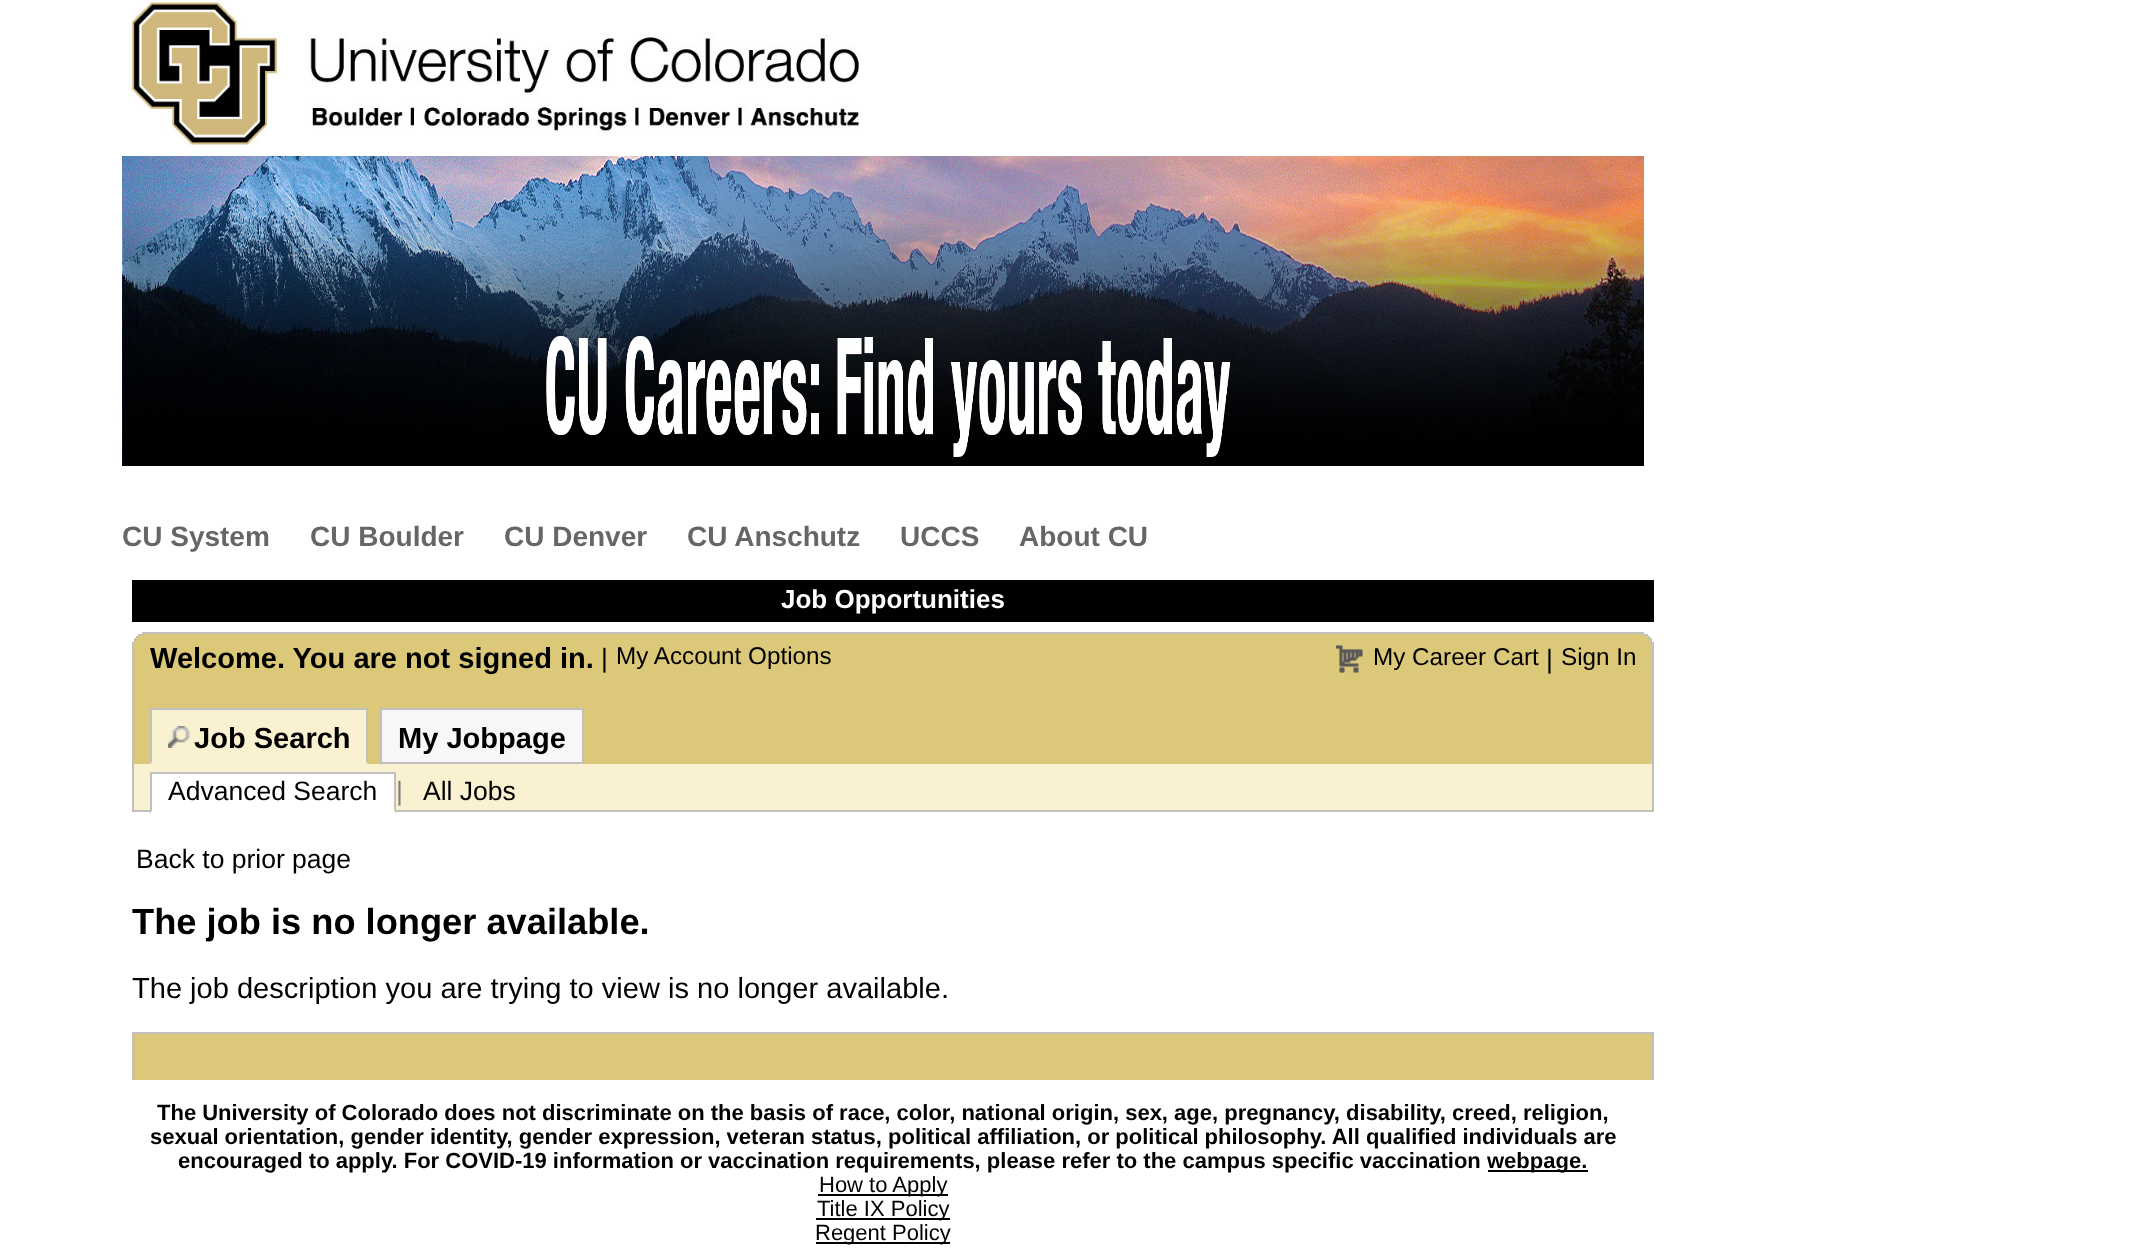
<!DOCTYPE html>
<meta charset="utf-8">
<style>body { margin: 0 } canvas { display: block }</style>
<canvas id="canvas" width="2141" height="1250"></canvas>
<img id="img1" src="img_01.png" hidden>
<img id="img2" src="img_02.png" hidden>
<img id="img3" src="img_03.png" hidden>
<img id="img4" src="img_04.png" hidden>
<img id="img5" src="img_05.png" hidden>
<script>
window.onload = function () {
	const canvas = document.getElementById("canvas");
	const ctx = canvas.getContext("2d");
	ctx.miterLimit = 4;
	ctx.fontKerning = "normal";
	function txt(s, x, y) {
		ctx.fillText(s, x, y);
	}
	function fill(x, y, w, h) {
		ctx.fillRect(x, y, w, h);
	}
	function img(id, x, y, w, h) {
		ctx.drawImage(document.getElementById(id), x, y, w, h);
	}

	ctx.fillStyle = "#FFFFFF";
	fill(0, 0, 2141, 1250);
	img("img1", 128, 0, 733, 148);
	img("img2", 122, 156, 1522, 310);
	ctx.fillStyle = "#000000";
	fill(132, 580, 1522, 42);
	ctx.fillStyle = "#C0C0C0";
	fill(142, 632, 1502, 2);
	ctx.fillStyle = "#DCC879";
	fill(138, 634, 1510, 2);
	ctx.fillStyle = "#C0C0C0";
	fill(1644, 634, 4, 2);
	fill(138, 634, 4, 2);
	ctx.fillStyle = "#DCC879";
	fill(136, 636, 1514, 2);
	ctx.fillStyle = "#C0C0C0";
	fill(1648, 636, 2, 2);
	fill(136, 636, 2, 2);
	ctx.fillStyle = "#DCC879";
	fill(134, 638, 1518, 126);
	ctx.fillStyle = "#C0C0C0";
	fill(1650, 638, 2, 4);
	fill(134, 638, 2, 4);
	fill(1652, 642, 2, 170);
	fill(132, 642, 2, 122);
	img("img3", 1336, 645, 27, 28);
	img("img4", 1336, 645, 27, 28);
	ctx.fillStyle = "#FAF1D1";
	fill(150, 710, 218, 54);
	ctx.fillStyle = "#C0C0C0";
	fill(150, 708, 218, 2);
	ctx.beginPath();
	ctx.moveTo(368, 708);
	ctx.lineTo(368, 764);
	ctx.lineTo(366, 762);
	ctx.lineTo(366, 710);
	ctx.closePath();
	ctx.fill();
	ctx.beginPath();
	ctx.moveTo(150, 764);
	ctx.lineTo(150, 708);
	ctx.lineTo(152, 710);
	ctx.lineTo(152, 762);
	ctx.closePath();
	ctx.fill();
	img("img5", 168, 726, 23, 22);
	ctx.fillStyle = "#F7F7F7";
	ctx.beginPath();
	ctx.rect(381, 709, 202, 54);
	ctx.fill();
	ctx.strokeStyle = "#C0C0C0";
	ctx.lineWidth = 2;
	ctx.stroke();
	ctx.fillStyle = "#FAF1D1";
	fill(134, 764, 1518, 46);
	ctx.fillStyle = "#C0C0C0";
	fill(132, 810, 1522, 2);
	fill(132, 764, 2, 48);
	ctx.fillStyle = "#FFFFFF";
	fill(150, 774, 246, 38);
	ctx.fillStyle = "#C0C0C0";
	fill(150, 772, 246, 2);
	ctx.beginPath();
	ctx.moveTo(396, 772);
	ctx.lineTo(396, 814);
	ctx.lineTo(394, 810);
	ctx.lineTo(394, 774);
	ctx.closePath();
	ctx.fill();
	ctx.beginPath();
	ctx.moveTo(150, 814);
	ctx.lineTo(150, 772);
	ctx.lineTo(152, 774);
	ctx.lineTo(152, 810);
	ctx.closePath();
	ctx.fill();
	ctx.fillStyle = "#DCC879";
	fill(134, 1034, 1518, 46);
	ctx.fillStyle = "#C0C0C0";
	fill(132, 1032, 1522, 2);
	fill(1652, 1032, 2, 48);
	fill(132, 1032, 2, 48);
	ctx.fillStyle = "#000000";
	fill(1488, 1170, 100, 2);
	fill(818, 1194, 130, 2);
	fill(816, 1218, 134, 2);
	fill(816, 1242, 134, 2);
	ctx.font = "bold 28px Liberation Sans";
	ctx.fillStyle = "#666666";
	txt("CU System", 122, 546);
	txt("CU Boulder", 310, 546);
	txt("CU Denver", 504, 546);
	txt("CU Anschutz", 687, 546);
	txt("UCCS", 900, 546);
	txt("About CU", 1019, 546);
	ctx.font = "bold 26px Liberation Sans";
	ctx.fillStyle = "#FFFFFF";
	txt("Job Opportunities", 781, 608);
	ctx.font = "bold 29.05px Liberation Sans";
	ctx.fillStyle = "#010000";
	txt("Welcome. You are not signed in.", 150, 668);
	ctx.font = "26.5px Liberation Sans";
	txt("|", 601, 667);
	ctx.font = "24.25px Liberation Sans";
	txt("My Account Options", 616, 664);
	txt("My Career Cart", 1373, 665);
	ctx.font = "26.5px Liberation Sans";
	txt("|", 1546, 668);
	ctx.font = "24.25px Liberation Sans";
	txt("Sign In", 1561, 665);
	ctx.font = "bold 29.05px Liberation Sans";
	txt("Job Search", 194, 748);
	txt("My Jobpage", 398, 748);
	ctx.font = "26.5px Liberation Sans";
	txt("Advanced Search", 168, 800);
	ctx.fillStyle = "#808080";
	txt("|", 396, 800);
	ctx.fillStyle = "#010000";
	txt("All Jobs", 423, 800);
	txt("Back to prior page", 136, 868);
	ctx.font = "bold 36.25px Liberation Sans";
	txt("The job is no longer available.", 132, 934);
	ctx.font = "29.05px Liberation Sans";
	txt("The job description you are trying to view is no longer available.", 132, 998);
	ctx.font = "bold 22px Liberation Sans";
	txt("The University of Colorado does not discriminate on the basis of race, color, national origin, sex, age, pregnancy, disability, creed, religion,", 157, 1120);
	txt("sexual orientation, gender identity, gender expression, veteran status, political affiliation, or political philosophy. All qualified individuals are", 150, 1144);
	txt("encouraged to apply. For COVID-19 information or vaccination requirements, please refer to the campus specific vaccination", 178, 1168);
	txt("webpage.", 1487, 1168);
	ctx.font = "22px Liberation Sans";
	txt("How to Apply", 819, 1192);
	txt("Title IX Policy", 817, 1216);
	txt("Regent Policy", 815, 1240);
};
</script>
